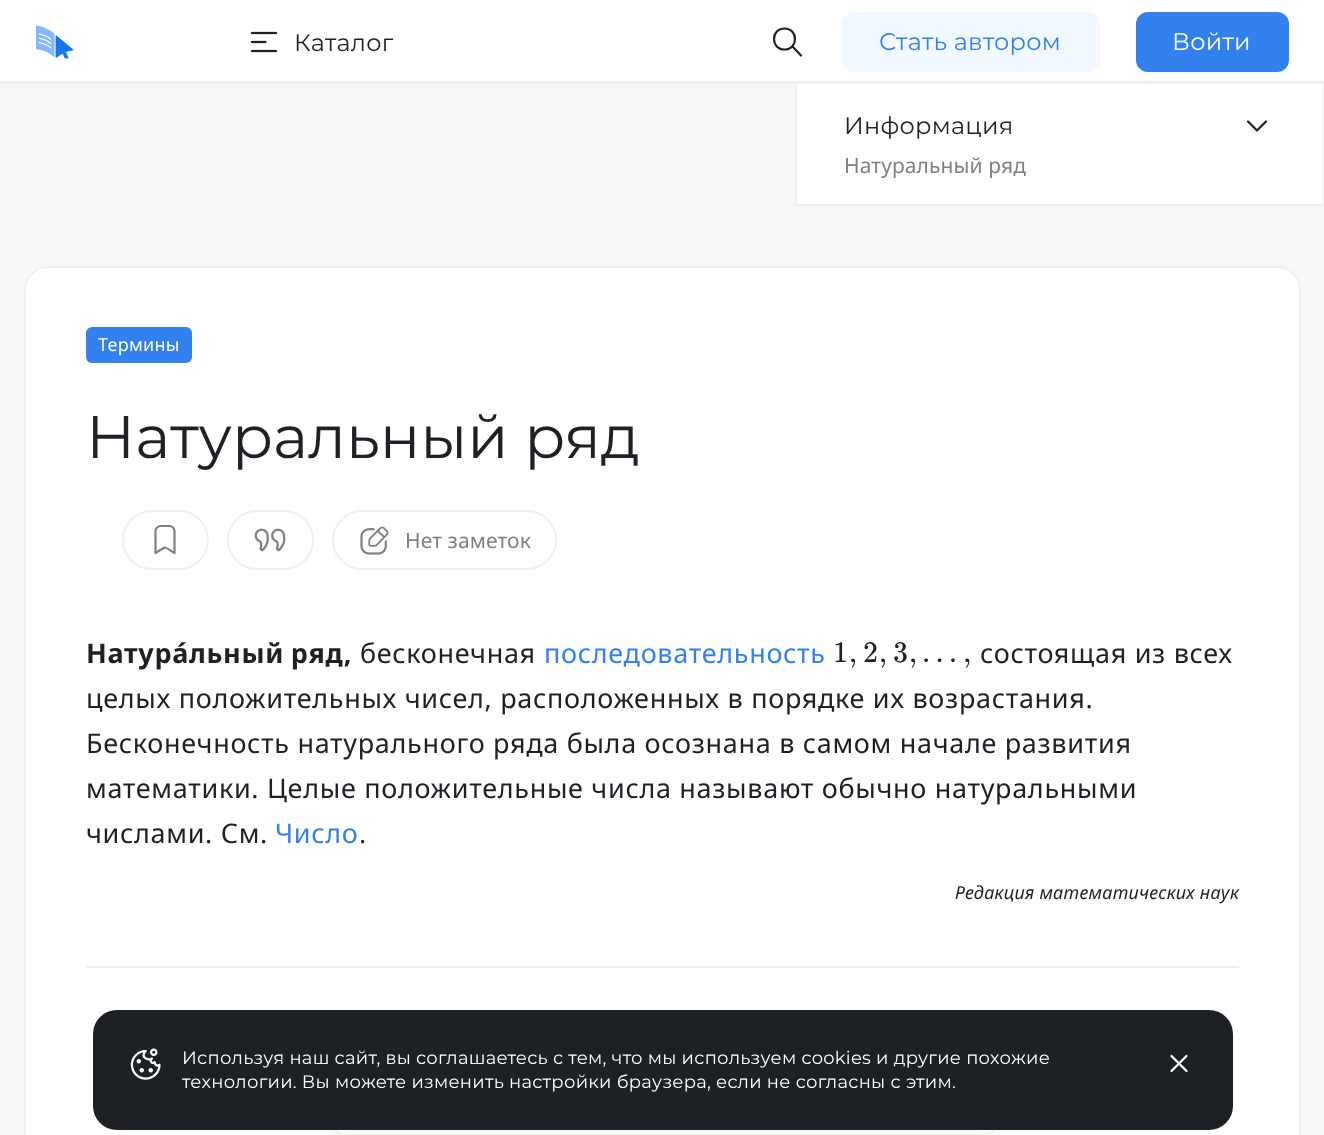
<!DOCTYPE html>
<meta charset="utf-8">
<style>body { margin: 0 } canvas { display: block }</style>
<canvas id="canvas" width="1324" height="1135"></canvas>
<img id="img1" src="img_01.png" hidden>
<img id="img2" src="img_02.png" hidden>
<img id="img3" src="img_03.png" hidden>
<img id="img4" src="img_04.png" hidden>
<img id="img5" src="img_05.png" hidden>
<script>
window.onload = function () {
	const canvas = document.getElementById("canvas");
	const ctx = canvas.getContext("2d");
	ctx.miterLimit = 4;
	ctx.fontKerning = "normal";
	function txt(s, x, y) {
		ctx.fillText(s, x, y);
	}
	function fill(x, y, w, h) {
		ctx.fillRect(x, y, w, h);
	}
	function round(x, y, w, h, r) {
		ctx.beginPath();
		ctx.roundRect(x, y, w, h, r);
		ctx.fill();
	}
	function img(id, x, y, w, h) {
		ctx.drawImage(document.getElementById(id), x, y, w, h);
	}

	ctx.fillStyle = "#F7F7F7";
	fill(0, 0, 1324, 1135);
	ctx.fillStyle = "#FFFFFF";
	fill(0, 0, 1324, 81);
	ctx.fillStyle = "#F0F0F0";
	fill(0, 81, 1324, 3);
	img("img1", 36, 25, 38, 34);
	img("img2", 250, 31, 28, 22);
	ctx.beginPath();
	ctx.moveTo(784.5, 49.5);
	ctx.bezierCurveTo(798.5, 49.5, 798.5, 28.5, 784.5, 28.5);
	ctx.bezierCurveTo(770.5, 28.5, 770.5, 49.5, 784.5, 49.5);
	ctx.closePath();
	ctx.moveTo(801, 55.5);
	ctx.lineTo(793, 47);
	ctx.strokeStyle = "#1D2126";
	ctx.lineWidth = 2.2;
	ctx.lineCap = "round";
	ctx.lineJoin = "round";
	ctx.stroke();
	ctx.fillStyle = "#F1F8FF";
	round(842, 12, 258, 60, 12);
	ctx.fillStyle = "#3380EF";
	round(1136, 12, 153, 60, 12);
	ctx.fillStyle = "#FFFFFF";
	fill(797, 84, 526, 120);
	ctx.fillStyle = "#F0F0F0";
	fill(1323, 84, 1, 122);
	fill(795, 204, 529, 2);
	fill(795, 84, 2, 122);
	ctx.beginPath();
	ctx.moveTo(1248, 121.5);
	ctx.lineTo(1257, 130.5);
	ctx.lineTo(1266, 121.5);
	ctx.lineJoin = "miter";
	ctx.stroke();
	ctx.fillStyle = "#FFFFFF";
	ctx.beginPath();
	ctx.roundRect(25, 267, 1275, 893, 23);
	ctx.fill();
	ctx.strokeStyle = "#F0F0F0";
	ctx.lineWidth = 2;
	ctx.stroke();
	ctx.fillStyle = "#3380EF";
	round(86, 327, 106, 36, 6);
	ctx.beginPath();
	ctx.roundRect(123, 511, 85, 58, 29);
	ctx.stroke();
	ctx.beginPath();
	ctx.moveTo(164.5, 547.5);
	ctx.lineTo(155.5, 553);
	ctx.lineTo(155.5, 531);
	ctx.bezierCurveTo(155.5, 528.5, 158, 526, 160.5, 526);
	ctx.lineTo(169.5, 526);
	ctx.bezierCurveTo(172, 526, 174.5, 528.5, 174.5, 531);
	ctx.lineTo(174.5, 553);
	ctx.bezierCurveTo(173, 552, 165.5, 547, 164.5, 547.5);
	ctx.closePath();
	ctx.strokeStyle = "#808080";
	ctx.lineWidth = 2.2;
	ctx.lineCap = "butt";
	ctx.lineJoin = "round";
	ctx.stroke();
	ctx.beginPath();
	ctx.roundRect(228, 511, 85, 58, 29);
	ctx.strokeStyle = "#F0F0F0";
	ctx.lineWidth = 2;
	ctx.lineJoin = "miter";
	ctx.stroke();
	img("img3", 254, 528, 32, 24);
	ctx.beginPath();
	ctx.roundRect(333, 511, 223, 58, 29);
	ctx.stroke();
	img("img4", 360, 526, 29, 29);
	ctx.fillStyle = "#F0F0F0";
	fill(86, 966, 1153, 2);
	ctx.beginPath();
	ctx.roundRect(324, 1026, 679, 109, 23);
	ctx.stroke();
	ctx.fillStyle = "#1D2126";
	round(93, 1010, 1140, 120, 24);
	img("img5", 130, 1048, 31, 32);
	ctx.beginPath();
	ctx.moveTo(1186.5, 1071);
	ctx.lineTo(1171.5, 1056);
	ctx.moveTo(1186.5, 1056);
	ctx.lineTo(1171.5, 1071);
	ctx.strokeStyle = "#FFFFFF";
	ctx.lineWidth = 2.2;
	ctx.lineCap = "round";
	ctx.lineJoin = "round";
	ctx.stroke();
	ctx.letterSpacing = "0.25px";
	ctx.font = "24px Montserrat";
	txt("Каталог", 294, 51);
	ctx.fillStyle = "#3380EF";
	txt("Стать автором", 879, 50);
	ctx.fillStyle = "#FFFFFF";
	txt("Войти", 1172, 50);
	ctx.fillStyle = "#1D2126";
	txt("Информация", 844, 134);
	ctx.letterSpacing = "0.1px";
	ctx.font = "21px Noto Sans";
	ctx.fillStyle = "#808080";
	txt("Натуральный ряд", 844, 173);
	ctx.letterSpacing = "0.27px";
	ctx.font = "18px Noto Sans";
	ctx.fillStyle = "#FFFFFF";
	txt("Термины", 98, 351);
	ctx.letterSpacing = "0px";
	ctx.font = "60px Montserrat";
	ctx.fillStyle = "#1D2126";
	txt("Натуральный ряд", 86, 458);
	ctx.letterSpacing = "0.1px";
	ctx.font = "21px Noto Sans";
	ctx.fillStyle = "#808080";
	txt("Нет заметок", 405, 548);
	ctx.letterSpacing = "0.68px";
	ctx.wordSpacing = "-1px";
	ctx.font = "bold 27px Noto Sans";
	ctx.fillStyle = "#1D2126";
	txt("Натура́льный ряд,", 86, 663);
	ctx.wordSpacing = "0px";
	ctx.font = "27px Noto Sans";
	txt("бесконечная", 360, 663);
	ctx.fillStyle = "#3380EF";
	txt("последовательность", 544, 663);
	ctx.font = "30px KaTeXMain";
	ctx.fillStyle = "#1D2126";
	txt("1,", 833, 662);
	txt("2,", 863, 662);
	txt("3,", 893, 662);
	txt("…", 922, 662);
	txt(",", 963, 662);
	ctx.font = "27px Noto Sans";
	txt("состоящая из всех", 980, 663);
	txt("целых положительных чисел, расположенных в порядке их возрастания.", 86, 708);
	txt("Бесконечность натурального ряда была осознана в самом начале развития", 86, 753);
	txt("математики. Целые положительные числа называют обычно натуральными", 86, 798);
	txt("числами. См.", 86, 843);
	ctx.fillStyle = "#3380EF";
	txt("Число", 275, 843);
	ctx.fillStyle = "#1D2126";
	txt(".", 359, 843);
	ctx.letterSpacing = "0.27px";
	ctx.font = "italic 18px Noto Sans";
	txt("Редакция математических наук", 955, 899);
	ctx.font = "18px Montserrat";
	ctx.fillStyle = "#FFFFFF";
	txt("Используя наш сайт, вы соглашаетесь с тем, что мы используем cookies и другие похожие", 182, 1064);
	txt("технологии. Вы можете изменить настройки браузера, если не согласны с этим.", 182, 1088);
};
</script>
